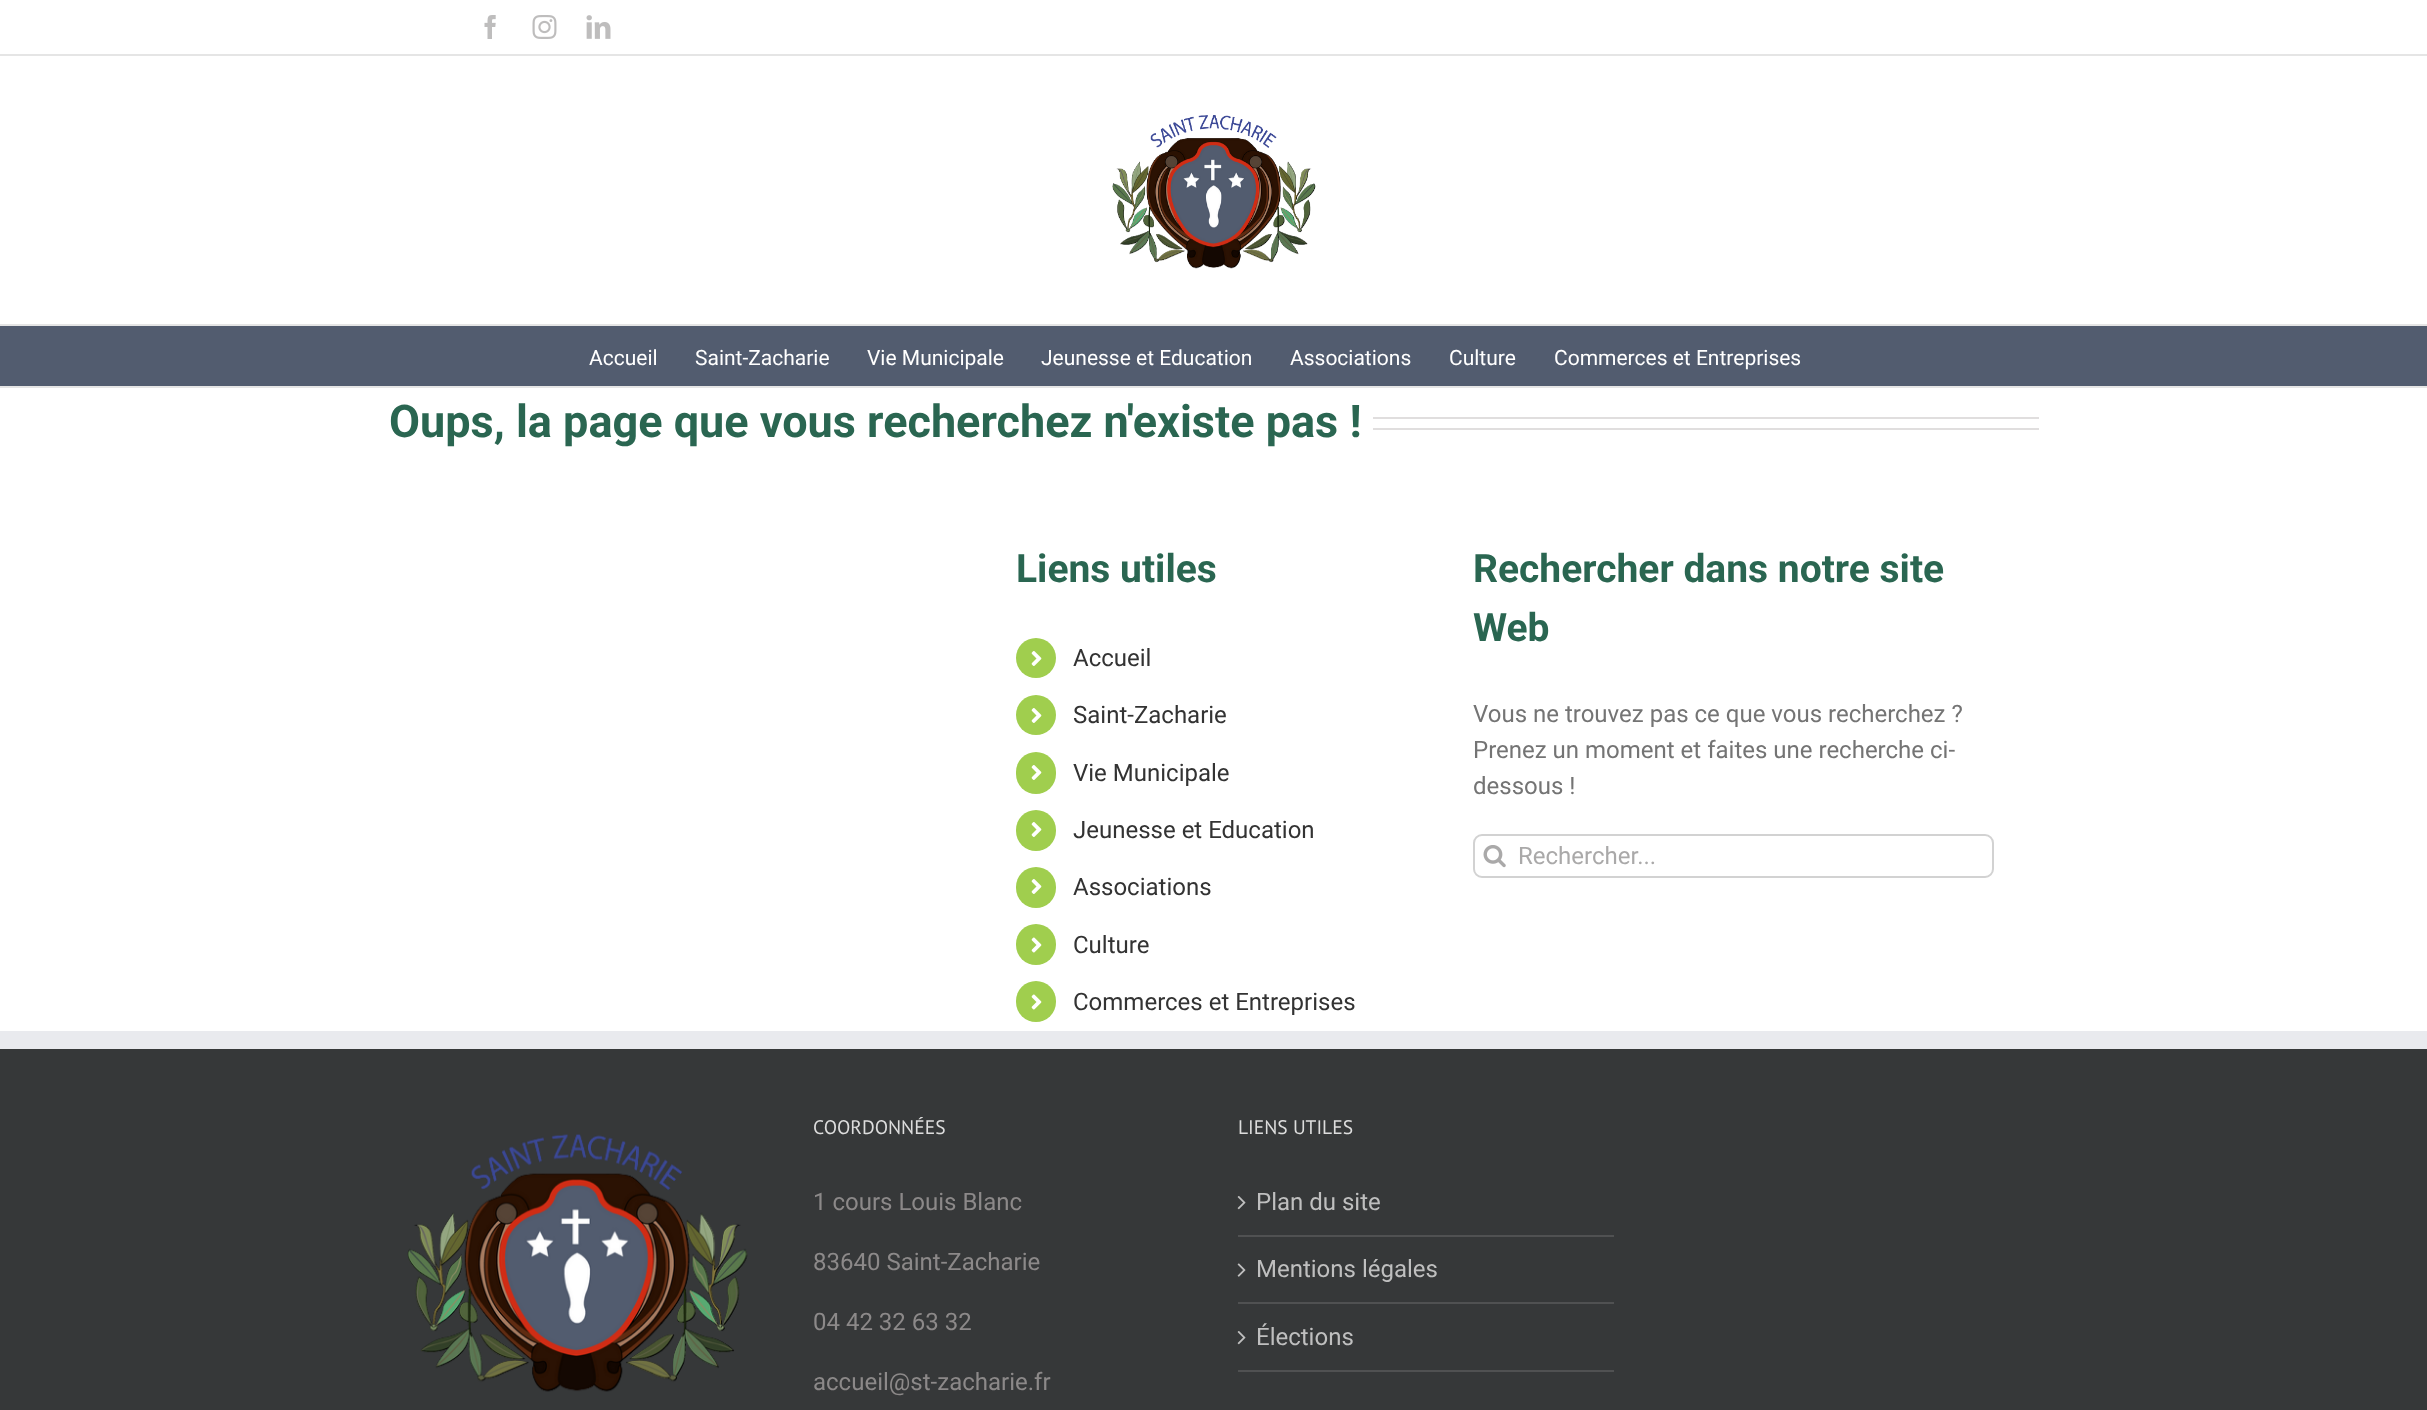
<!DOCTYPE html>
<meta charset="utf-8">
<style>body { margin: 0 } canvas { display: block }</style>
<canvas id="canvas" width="2427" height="1410"></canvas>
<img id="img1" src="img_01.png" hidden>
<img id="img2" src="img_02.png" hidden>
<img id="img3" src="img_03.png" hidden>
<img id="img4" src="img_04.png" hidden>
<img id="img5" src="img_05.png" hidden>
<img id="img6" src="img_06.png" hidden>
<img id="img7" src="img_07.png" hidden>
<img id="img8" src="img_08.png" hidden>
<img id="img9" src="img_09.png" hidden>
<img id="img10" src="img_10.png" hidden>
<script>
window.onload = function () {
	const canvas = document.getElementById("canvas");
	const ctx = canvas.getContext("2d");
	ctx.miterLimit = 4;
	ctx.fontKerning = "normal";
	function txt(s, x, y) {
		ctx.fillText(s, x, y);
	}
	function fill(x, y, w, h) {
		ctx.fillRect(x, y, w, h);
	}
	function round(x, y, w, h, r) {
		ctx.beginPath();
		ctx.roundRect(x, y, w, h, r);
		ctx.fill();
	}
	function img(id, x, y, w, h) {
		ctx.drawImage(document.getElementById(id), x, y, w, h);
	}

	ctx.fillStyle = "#FFFFFF";
	fill(0, 0, 2427, 1410);
	ctx.fillStyle = "#E5E5E5";
	fill(0, 54, 2427, 2);
	img("img1", 484, 15, 12, 24);
	img("img2", 532, 15, 25, 24);
	img("img3", 586, 15, 25, 24);
	fill(0, 324, 2427, 2);
	img("img4", 1112, 115, 204, 154);
	ctx.fillStyle = "#525C6F";
	fill(0, 326, 2427, 60);
	ctx.fillStyle = "#E5E5E5";
	fill(0, 386, 2427, 2);
	ctx.fillStyle = "#E0DEDE";
	fill(1373, 417, 666, 2);
	fill(1373, 428, 666, 2);
	ctx.fillStyle = "#A0CE4E";
	ctx.beginPath();
	ctx.arc(1036, 658, 20, 0, Math.PI * 2);
	ctx.fill();
	img("img5", 1031, 651, 11, 15);
	ctx.beginPath();
	ctx.arc(1036, 715, 20, 0, Math.PI * 2);
	ctx.fill();
	img("img5", 1031, 708, 11, 15);
	round(1016, 752, 40, 42, 20);
	img("img5", 1031, 765, 11, 15);
	round(1016, 810, 40, 41, 20);
	img("img5", 1031, 822, 11, 15);
	round(1016, 867, 40, 41, 20);
	img("img5", 1031, 879, 11, 15);
	round(1016, 924, 40, 41, 20);
	img("img6", 1031, 937, 11, 16);
	round(1016, 981, 40, 41, 20);
	img("img6", 1031, 994, 11, 16);
	ctx.beginPath();
	ctx.roundRect(1474, 835, 519, 42, 8);
	ctx.strokeStyle = "#D2D2D2";
	ctx.lineWidth = 2;
	ctx.stroke();
	img("img7", 1483, 845, 23, 23);
	ctx.fillStyle = "#363839";
	fill(0, 1049, 2427, 361);
	ctx.fillStyle = "#E9EAEE";
	fill(0, 1031, 2427, 18);
	img("img8", 407, 1134, 341, 258);
	ctx.fillStyle = "#505152";
	fill(1238, 1235, 376, 2);
	img("img9", 1237, 1196, 9, 14);
	fill(1238, 1302, 376, 2);
	img("img10", 1237, 1263, 9, 14);
	fill(1238, 1370, 376, 2);
	img("img9", 1237, 1331, 9, 14);
	ctx.font = "21px Roboto";
	ctx.fillStyle = "#FFFFFF";
	txt("Accueil", 589, 365);
	txt("Saint-Zacharie", 695, 365);
	txt("Vie Municipale", 867, 365);
	txt("Jeunesse et Education", 1041, 365);
	txt("Associations", 1290, 365);
	txt("Culture", 1449, 365);
	txt("Commerces et Entreprises", 1554, 365);
	ctx.font = "bold 45px Roboto";
	ctx.fillStyle = "#2A6651";
	txt("Oups, la page que vous recherchez n'existe pas !", 389, 437);
	ctx.font = "bold 39px Roboto";
	txt("Liens utiles", 1016, 582);
	ctx.font = "24px Roboto";
	ctx.fillStyle = "#333333";
	txt("Accueil", 1073, 666);
	txt("Saint-Zacharie", 1073, 723);
	txt("Vie Municipale", 1073, 781);
	txt("Jeunesse et Education", 1073, 838);
	txt("Associations", 1073, 895);
	txt("Culture", 1073, 953);
	txt("Commerces et Entreprises", 1073, 1010);
	ctx.font = "bold 39px Roboto";
	ctx.fillStyle = "#2A6651";
	txt("Rechercher dans notre site", 1473, 582);
	txt("Web", 1473, 641);
	ctx.font = "24px Roboto";
	ctx.fillStyle = "#747474";
	txt("Vous ne trouvez pas ce que vous recherchez ?", 1473, 722);
	txt("Prenez un moment et faites une recherche ci-", 1473, 758);
	txt("dessous !", 1473, 794);
	ctx.fillStyle = "#AAA9A9";
	txt("Rechercher...", 1518, 864);
	ctx.font = "19.5px PT Sans";
	ctx.fillStyle = "#DDDDDD";
	txt("COORDONNÉES", 813, 1134);
	ctx.font = "24px Roboto";
	ctx.fillStyle = "#8C8989";
	txt("1 cours Louis Blanc", 813, 1210);
	txt("83640 Saint-Zacharie", 813, 1270);
	txt("04 42 32 63 32", 813, 1330);
	txt("accueil@st-zacharie.fr", 813, 1390);
	ctx.font = "19.5px PT Sans";
	ctx.fillStyle = "#DDDDDD";
	txt("LIENS UTILES", 1238, 1134);
	ctx.font = "24px Roboto";
	ctx.fillStyle = "#BFBFBF";
	txt("Plan du site", 1256, 1210);
	txt("Mentions légales", 1256, 1277);
	txt("Élections", 1256, 1345);
};
</script>
